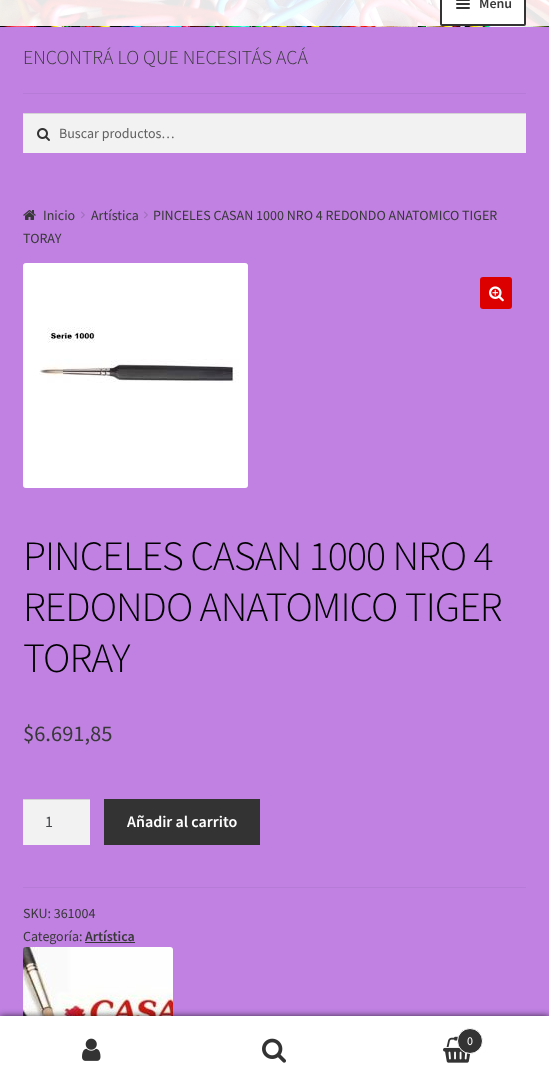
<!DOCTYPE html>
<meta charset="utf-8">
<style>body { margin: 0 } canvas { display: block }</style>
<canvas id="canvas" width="549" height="1085"></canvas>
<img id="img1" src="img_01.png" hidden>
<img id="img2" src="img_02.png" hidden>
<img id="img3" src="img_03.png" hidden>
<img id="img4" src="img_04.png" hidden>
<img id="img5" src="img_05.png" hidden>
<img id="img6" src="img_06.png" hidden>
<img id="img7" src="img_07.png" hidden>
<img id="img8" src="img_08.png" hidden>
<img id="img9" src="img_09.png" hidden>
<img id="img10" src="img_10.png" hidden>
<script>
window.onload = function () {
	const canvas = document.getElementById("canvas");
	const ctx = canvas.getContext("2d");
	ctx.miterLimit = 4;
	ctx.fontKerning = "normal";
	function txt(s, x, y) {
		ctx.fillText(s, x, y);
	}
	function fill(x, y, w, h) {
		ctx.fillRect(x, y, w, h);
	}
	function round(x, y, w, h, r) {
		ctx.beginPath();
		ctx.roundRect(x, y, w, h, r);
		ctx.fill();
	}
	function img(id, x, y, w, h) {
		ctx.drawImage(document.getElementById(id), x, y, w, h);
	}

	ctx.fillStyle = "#C081E2";
	fill(0, 0, 549, 1085);
	img("img1", 0, 0, 549, 27);
	ctx.fillStyle = "#FFFFFF";
	ctx.beginPath();
	ctx.roundRect(441, -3, 84, 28, 1);
	ctx.fill();
	ctx.strokeStyle = "#333333";
	ctx.lineWidth = 2;
	ctx.stroke();
	ctx.fillStyle = "#333333";
	round(456, -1, 14, 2, 1);
	round(456, 3, 14, 2, 1);
	round(456, 7, 14, 2, 1);
	ctx.fillStyle = "#B67BD7";
	fill(23, 93, 503, 1);
	ctx.fillStyle = "#F2F2F2";
	fill(23, 114, 503, 39);
	img("img2", 37, 128, 13, 13);
	ctx.fillStyle = "#D4D4D4";
	fill(23, 113, 503, 1);
	img("img3", 23, 210, 13, 10);
	img("img4", 81, 211, 4, 8);
	img("img4", 144, 211, 4, 8);
	img("img5", 23, 263, 225, 225);
	ctx.fillStyle = "#DD0000";
	round(480, 277, 32, 32, 3);
	img("img6", 489, 286, 15, 16);
	ctx.fillStyle = "#F2F2F2";
	fill(23, 800, 67, 45);
	ctx.fillStyle = "#D4D4D4";
	fill(23, 799, 67, 1);
	ctx.fillStyle = "#333333";
	fill(104, 799, 156, 46);
	ctx.fillStyle = "#B67BD7";
	fill(23, 887, 503, 1);
	ctx.fillStyle = "#383838";
	fill(85, 942, 50, 1);
	img("img7", 23, 947, 150, 69);
	ctx.fillStyle = "rgba(0, 0, 0, 0.7)";
	ctx.filter = "blur(3px)";
	ctx.beginPath();
	ctx.rect(0, 1016, 549, 69);
	ctx.fill();
	ctx.filter = "none";
	ctx.fillStyle = "#FFFFFF";
	fill(0, 1016, 549, 1);
	fill(0, 1017, 549, 68);
	img("img8", 82, 1038, 19, 23);
	img("img9", 262, 1038, 24, 25);
	img("img10", 443, 1036, 28, 27);
	ctx.fillStyle = "#333333";
	ctx.beginPath();
	ctx.arc(470, 1041, 12.5, 0, Math.PI * 2);
	ctx.fill();
	ctx.strokeStyle = "#FFFFFF";
	ctx.lineWidth = 1;
	ctx.stroke();
	ctx.font = "600 14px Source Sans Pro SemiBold";
	ctx.fillStyle = "#383838";
	txt("Menú", 479, 8);
	ctx.font = "300 19.8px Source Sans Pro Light";
	txt("ENCONTRÁ LO QUE NECESITÁS ACÁ", 23, 64);
	ctx.font = "14px Source Sans Pro";
	ctx.fillStyle = "#616161";
	txt("Buscar productos…", 59, 138);
	ctx.fillStyle = "#383838";
	txt("Inicio", 43, 220);
	txt("Artística", 91, 220);
	txt("PINCELES CASAN 1000 NRO 4 REDONDO ANATOMICO TIGER", 153, 220);
	txt("TORAY", 23, 243);
	ctx.letterSpacing = "-1px";
	ctx.font = "300 41.9px Source Sans Pro Light";
	ctx.fillStyle = "#000000";
	txt("PINCELES CASAN 1000 NRO 4", 23, 570);
	txt("REDONDO ANATOMICO TIGER", 23, 621);
	txt("TORAY", 23, 672);
	ctx.letterSpacing = "0px";
	ctx.font = "22.5px Source Sans Pro";
	ctx.fillStyle = "#383838";
	txt("$6.691,85", 23, 741);
	ctx.font = "16px Source Sans Pro";
	ctx.fillStyle = "#43454B";
	txt("1", 45, 827);
	ctx.font = "600 16px Source Sans Pro SemiBold";
	ctx.fillStyle = "#FFFFFF";
	txt("Añadir al carrito", 127, 827);
	ctx.font = "14px Source Sans Pro";
	ctx.fillStyle = "#383838";
	txt("SKU: 361004", 23, 918);
	txt("Categoría:", 23, 941);
	ctx.font = "600 14px Source Sans Pro SemiBold";
	txt("Artística", 85, 941);
	ctx.font = "12px Source Sans Pro";
	ctx.fillStyle = "#FFFFFF";
	txt("0", 467, 1045);
};
</script>
